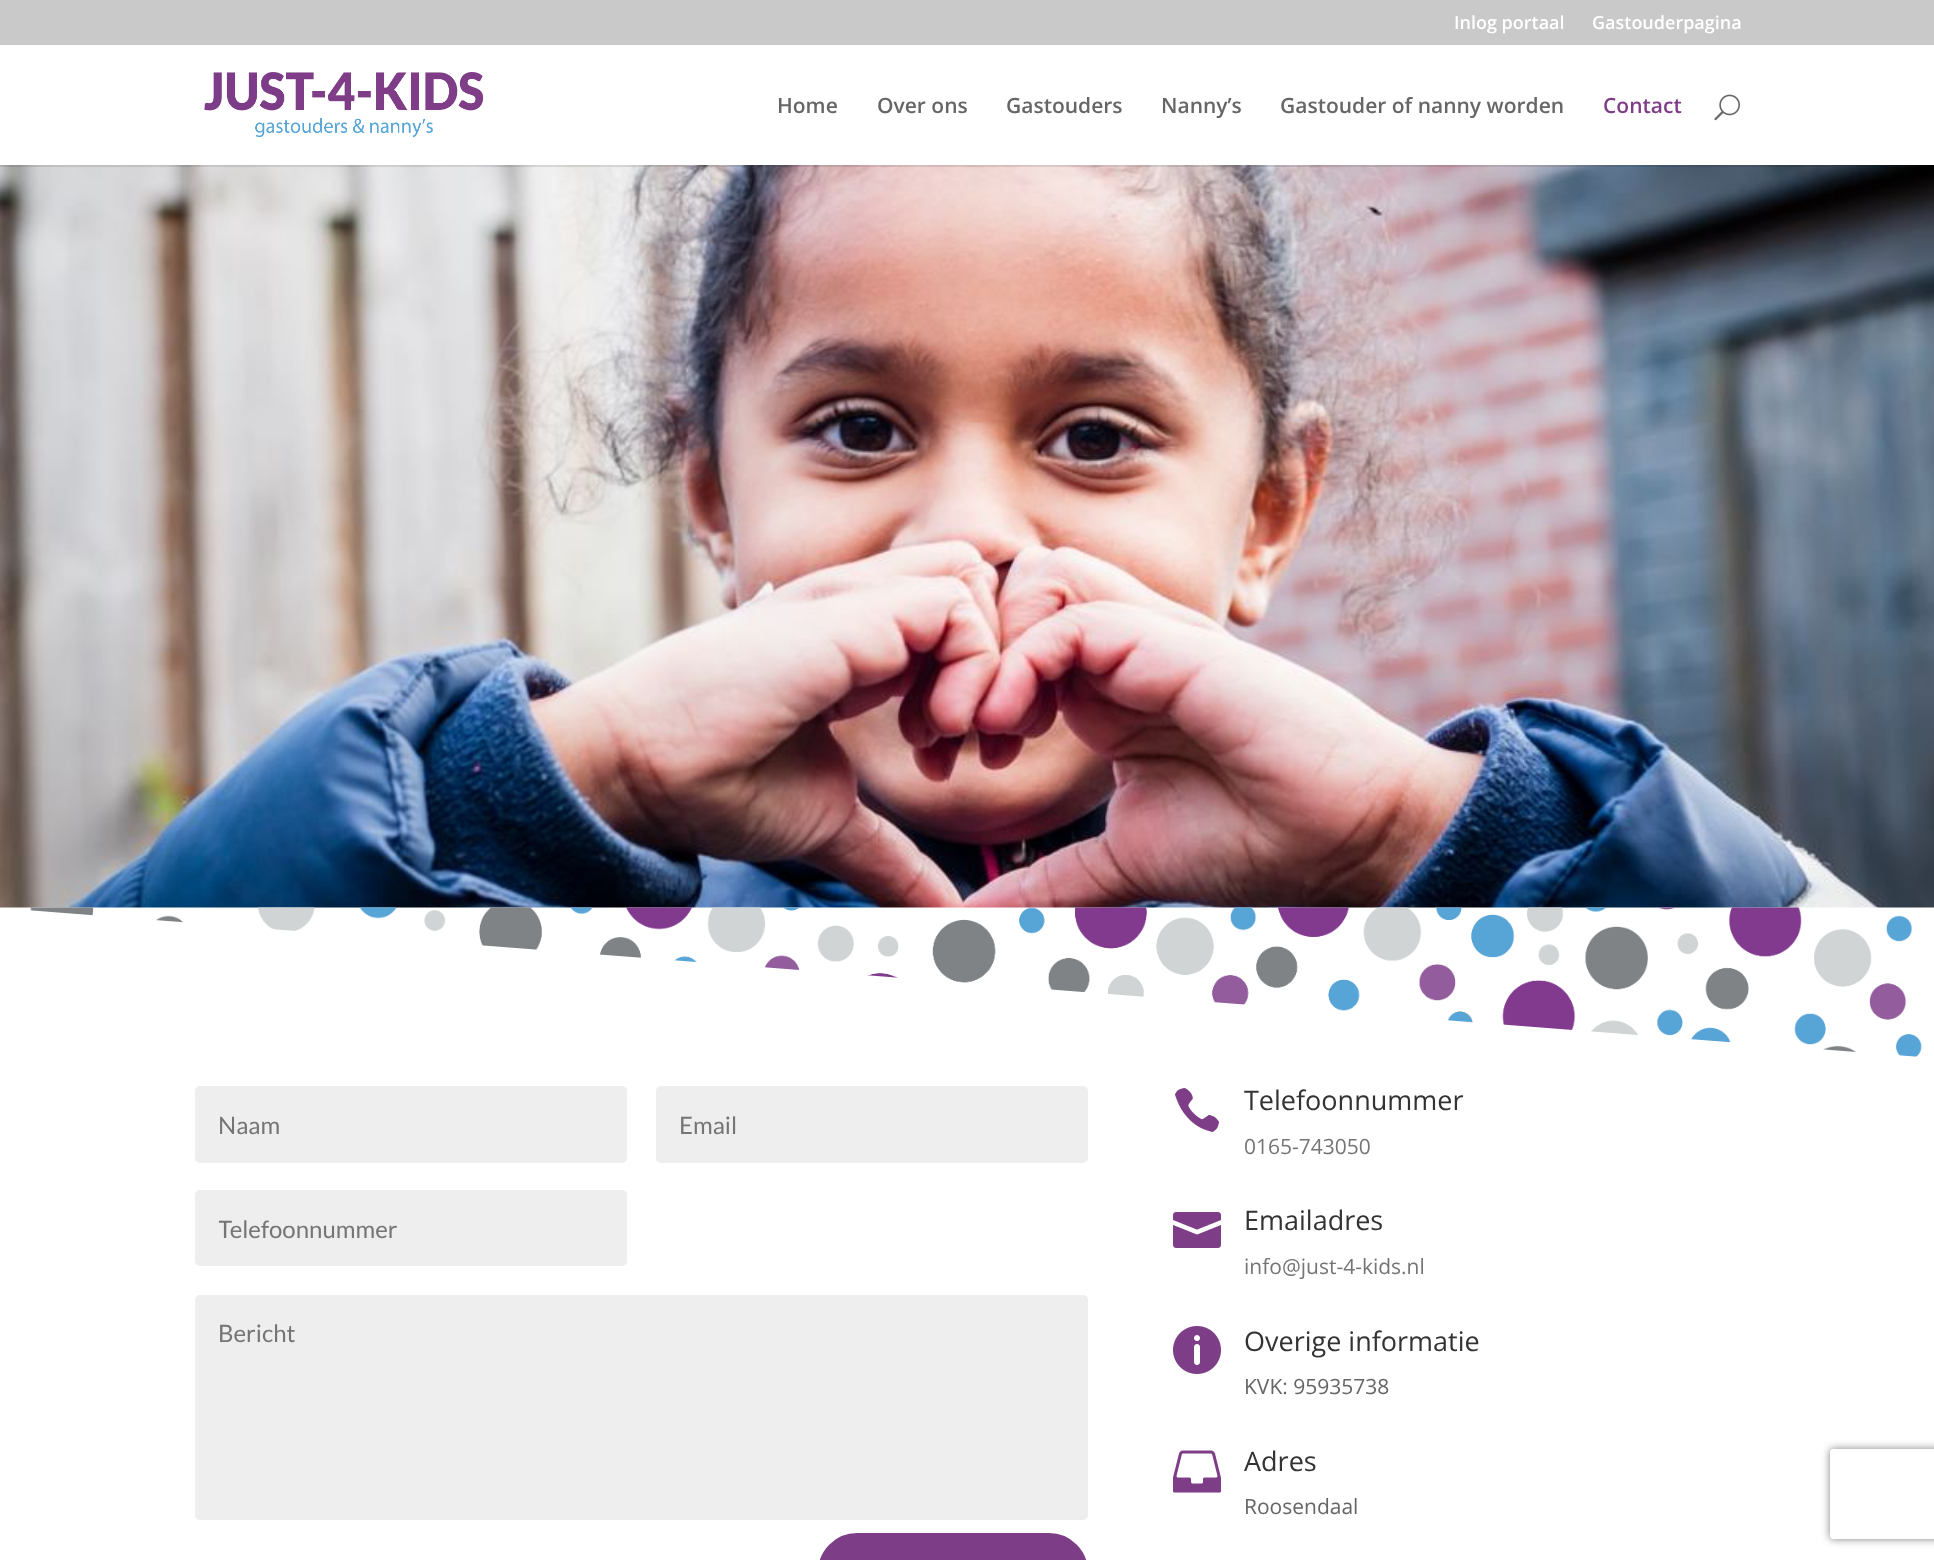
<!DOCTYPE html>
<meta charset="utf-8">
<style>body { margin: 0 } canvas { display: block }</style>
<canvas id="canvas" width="1934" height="1560"></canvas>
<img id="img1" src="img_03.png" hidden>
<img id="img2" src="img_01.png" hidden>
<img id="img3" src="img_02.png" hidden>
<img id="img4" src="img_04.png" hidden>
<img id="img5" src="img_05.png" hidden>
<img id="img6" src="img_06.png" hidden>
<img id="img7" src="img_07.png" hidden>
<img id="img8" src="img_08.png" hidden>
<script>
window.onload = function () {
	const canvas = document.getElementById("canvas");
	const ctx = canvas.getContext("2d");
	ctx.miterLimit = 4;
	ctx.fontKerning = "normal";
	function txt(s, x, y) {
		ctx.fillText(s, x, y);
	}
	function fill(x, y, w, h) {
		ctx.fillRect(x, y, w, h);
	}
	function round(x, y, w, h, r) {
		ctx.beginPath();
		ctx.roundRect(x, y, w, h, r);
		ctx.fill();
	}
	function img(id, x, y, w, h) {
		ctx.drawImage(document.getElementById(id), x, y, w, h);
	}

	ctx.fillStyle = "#FFFFFF";
	fill(0, 0, 1934, 1560);
	ctx.fillStyle = "#C9C9C9";
	fill(0, 0, 1934, 45);
	img("img1", 0, 165, 1934, 743);
	ctx.fillStyle = "rgba(0, 0, 0, 0.1)";
	fill(0, 165, 1888, 2);
	img("img2", 204, 72, 280, 66);
	img("img3", 1714, 94, 26, 27);
	img("img4", 30, 907, 1892, 150);
	ctx.fillStyle = "#FFFFFF";
	ctx.beginPath();
	ctx.moveTo(0, 908);
	ctx.lineTo(0, 1058);
	ctx.lineTo(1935, 1058);
	ctx.closePath();
	ctx.fill();
	ctx.fillStyle = "#EEEEEE";
	round(195, 1086, 432, 77, 5);
	round(656, 1086, 432, 77, 5);
	round(195, 1190, 432, 76, 5);
	round(195, 1295, 893, 225, 5);
	ctx.fillStyle = "#7E3D87";
	ctx.beginPath();
	ctx.roundRect(825.5, 1540.5, 255, 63, 31.5);
	ctx.fill();
	ctx.strokeStyle = "#7E3D87";
	ctx.lineWidth = 15;
	ctx.stroke();
	img("img5", 1175, 1088, 44, 44);
	img("img6", 1173, 1212, 48, 36);
	img("img7", 1173, 1326, 48, 48);
	img("img8", 1173, 1450, 48, 43);
	ctx.save();
	ctx.beginPath();
	ctx.moveTo(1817, 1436);
	ctx.lineTo(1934, 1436);
	ctx.lineTo(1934, 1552);
	ctx.lineTo(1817, 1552);
	ctx.closePath();
	ctx.moveTo(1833, 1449);
	ctx.lineTo(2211, 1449);
	ctx.bezierCurveTo(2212.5, 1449, 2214, 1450.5, 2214, 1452);
	ctx.lineTo(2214, 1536);
	ctx.bezierCurveTo(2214, 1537.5, 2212.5, 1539, 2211, 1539);
	ctx.lineTo(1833, 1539);
	ctx.bezierCurveTo(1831.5, 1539, 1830, 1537.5, 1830, 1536);
	ctx.lineTo(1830, 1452);
	ctx.bezierCurveTo(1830, 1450.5, 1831.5, 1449, 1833, 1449);
	ctx.closePath();
	ctx.clip("evenodd");
	ctx.fillStyle = "#808080";
	ctx.filter = "blur(4px)";
	ctx.beginPath();
	ctx.roundRect(1830, 1449, 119, 90, 3);
	ctx.fill();
	ctx.filter = "none";
	ctx.restore();
	ctx.font = "600 18px Open Sans";
	ctx.fillStyle = "#FFFFFF";
	txt("Inlog portaal", 1454, 29);
	txt("Gastouderpagina", 1592, 29);
	ctx.font = "600 21px Open Sans";
	ctx.fillStyle = "#666666";
	txt("Home", 777, 113);
	txt("Over ons", 877, 113);
	txt("Gastouders", 1006, 113);
	txt("Nanny’s", 1161, 113);
	txt("Gastouder of nanny worden", 1280, 113);
	ctx.fillStyle = "#7E3D87";
	txt("Contact", 1603, 113);
	ctx.font = "24px Lato";
	ctx.fillStyle = "#757575";
	txt("Naam", 218, 1134);
	txt("Email", 679, 1134);
	ctx.save();
	ctx.beginPath();
	ctx.rect(219, 1214, 384, 28);
	ctx.clip();
	txt("Telefoonnummer", 218, 1238);
	ctx.restore();
	txt("Bericht", 218, 1342);
	ctx.font = "27px Open Sans";
	ctx.fillStyle = "#333333";
	txt("Telefoonnummer", 1244, 1110);
	ctx.font = "21px Open Sans";
	ctx.fillStyle = "#757575";
	txt("0165-743050", 1244, 1154);
	ctx.font = "27px Open Sans";
	ctx.fillStyle = "#333333";
	txt("Emailadres", 1244, 1230);
	ctx.font = "21px Open Sans";
	ctx.fillStyle = "#757575";
	txt("info@just-4-kids.nl", 1244, 1274);
	ctx.font = "27px Open Sans";
	ctx.fillStyle = "#333333";
	txt("Overige informatie", 1244, 1351);
	ctx.font = "21px Open Sans";
	ctx.fillStyle = "#666666";
	txt("KVK: 95935738", 1244, 1394);
	ctx.font = "27px Open Sans";
	ctx.fillStyle = "#333333";
	txt("Adres", 1244, 1471);
	ctx.font = "21px Open Sans";
	ctx.fillStyle = "#666666";
	txt("Roosendaal", 1244, 1514);
};
</script>
